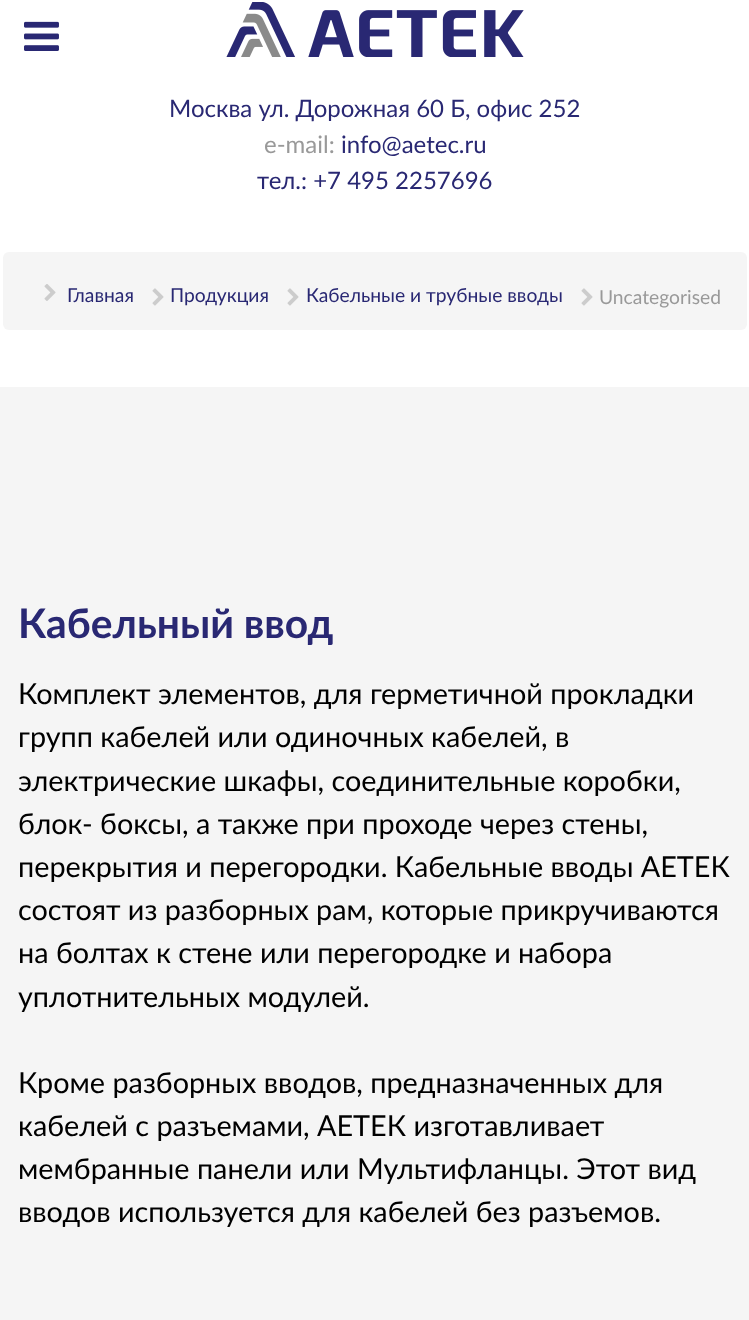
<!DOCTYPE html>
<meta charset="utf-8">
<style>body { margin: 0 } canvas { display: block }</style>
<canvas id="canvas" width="749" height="1320"></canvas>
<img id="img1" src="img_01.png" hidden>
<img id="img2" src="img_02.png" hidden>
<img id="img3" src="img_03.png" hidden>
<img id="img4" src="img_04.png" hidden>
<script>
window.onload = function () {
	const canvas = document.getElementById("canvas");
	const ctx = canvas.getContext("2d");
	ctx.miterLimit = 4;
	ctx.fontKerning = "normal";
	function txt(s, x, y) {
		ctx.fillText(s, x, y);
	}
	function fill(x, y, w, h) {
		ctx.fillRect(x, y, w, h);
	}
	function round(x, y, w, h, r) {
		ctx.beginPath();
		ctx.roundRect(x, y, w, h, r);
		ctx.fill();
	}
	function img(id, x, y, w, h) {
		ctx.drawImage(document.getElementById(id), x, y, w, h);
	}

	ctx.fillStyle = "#FFFFFF";
	fill(0, 0, 749, 1320);
	img("img1", 24, 21, 35, 30);
	img("img2", 226, 2, 298, 55);
	ctx.fillStyle = "#F5F5F5";
	round(3, 252, 744, 78, 6);
	img("img3", 44, 284, 12, 17);
	img("img4", 152, 288, 12, 18);
	img("img4", 287, 288, 12, 18);
	img("img4", 581, 288, 12, 18);
	fill(0, 387, 749, 933);
	ctx.font = "24px Lato";
	ctx.fillStyle = "#292873";
	txt("Москва ул. Дорожная 60 Б, офис 252", 169, 117);
	ctx.fillStyle = "#999999";
	txt("e-mail:", 264, 153);
	ctx.fillStyle = "#292873";
	txt("info@aetec.ru", 341, 153);
	txt("тел.: +7 495 2257696", 257, 189);
	ctx.font = "19.25px Lato";
	txt("Главная", 67, 302);
	txt("Продукция", 170, 302);
	txt("Кабельные и трубные вводы", 306, 302);
	ctx.fillStyle = "#999999";
	txt("Uncategorised", 599, 304);
	ctx.font = "bold 40.75px Lato";
	ctx.fillStyle = "#292873";
	txt("Кабельный ввод", 18, 638);
	ctx.font = "28.8px Lato";
	ctx.fillStyle = "#000000";
	txt("Комплект элементов, для герметичной прокладки", 18, 704);
	txt("групп кабелей или одиночных кабелей, в", 18, 747);
	txt("электрические шкафы, соединительные коробки,", 18, 791);
	txt("блок- боксы, а также при проходе через стены,", 18, 834);
	txt("перекрытия и перегородки. Кабельные вводы АЕТЕК", 18, 877);
	txt("состоят из разборных рам, которые прикручиваются", 18, 920);
	txt("на болтах к стене или перегородке и набора", 18, 963);
	txt("уплотнительных модулей.", 18, 1007);
	txt("Кроме разборных вводов, предназначенных для", 18, 1093);
	txt("кабелей с разъемами, АЕТЕК изготавливает", 18, 1136);
	txt("мембранные панели или Мультифланцы. Этот вид", 18, 1179);
	txt("вводов используется для кабелей без разъемов.", 18, 1222);
};
</script>
